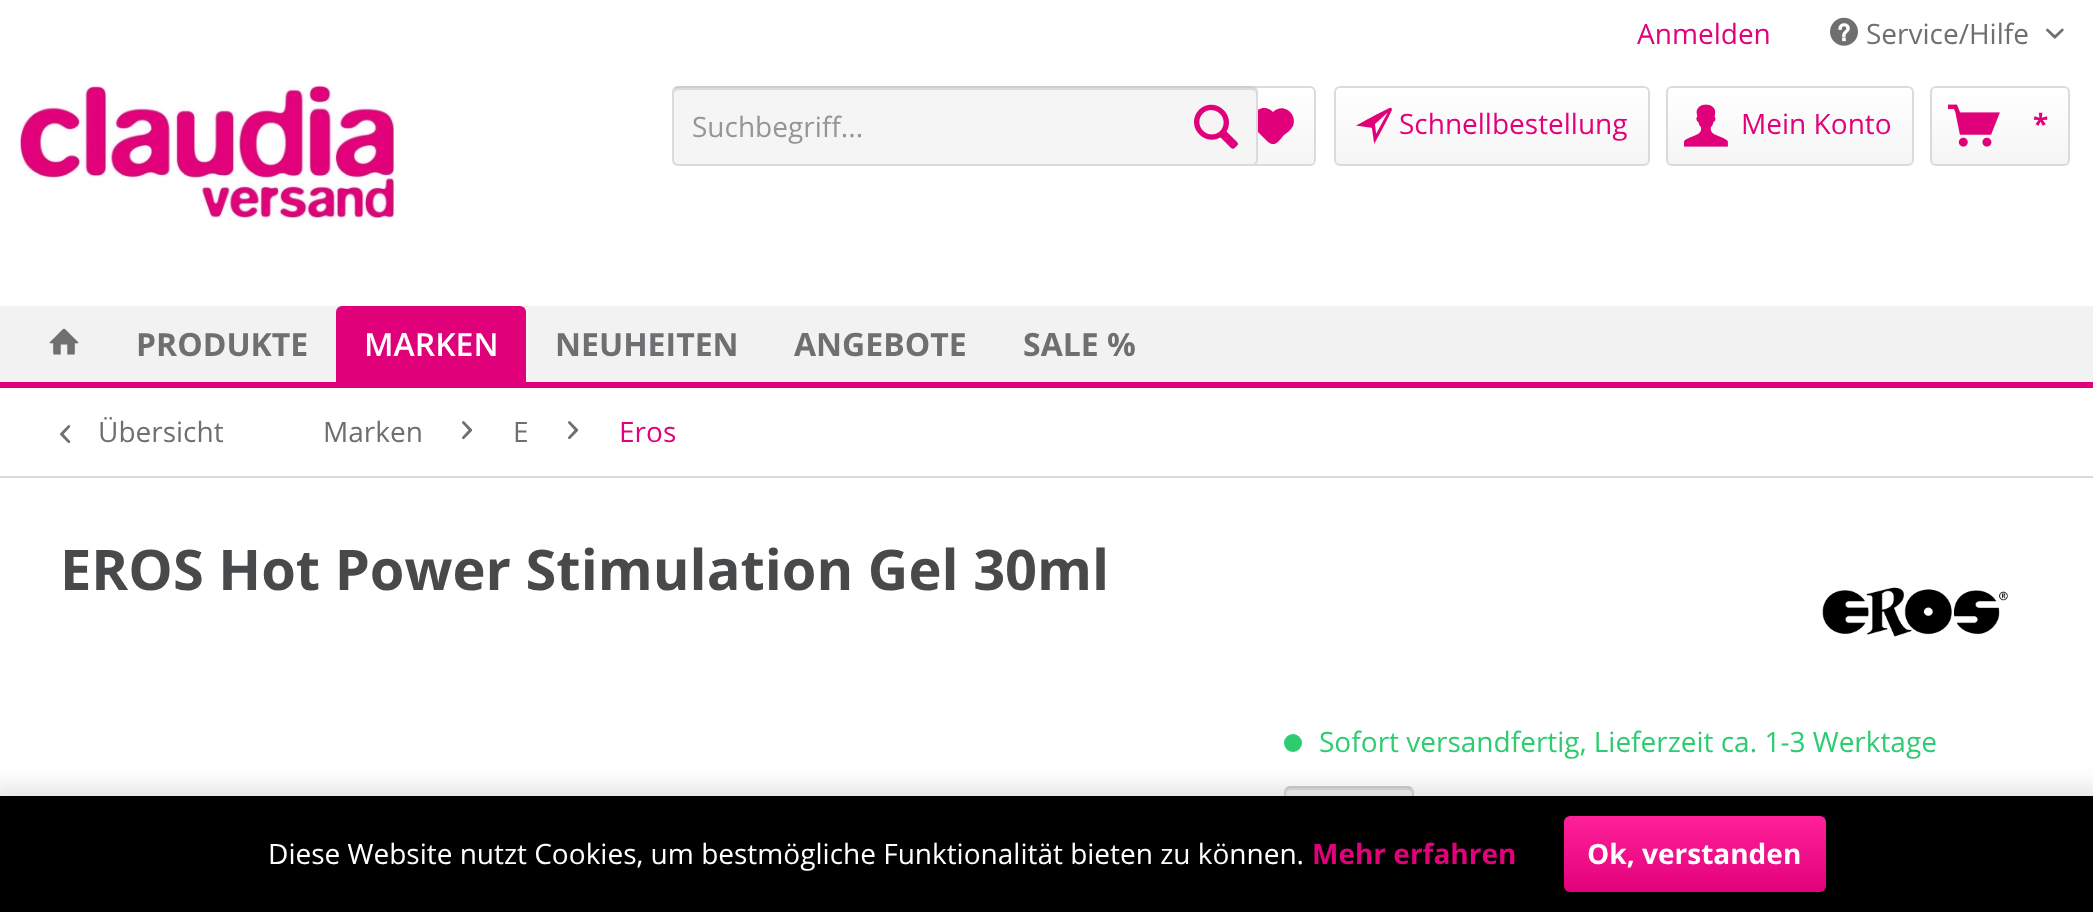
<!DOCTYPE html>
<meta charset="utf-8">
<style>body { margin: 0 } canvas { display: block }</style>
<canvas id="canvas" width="2093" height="912"></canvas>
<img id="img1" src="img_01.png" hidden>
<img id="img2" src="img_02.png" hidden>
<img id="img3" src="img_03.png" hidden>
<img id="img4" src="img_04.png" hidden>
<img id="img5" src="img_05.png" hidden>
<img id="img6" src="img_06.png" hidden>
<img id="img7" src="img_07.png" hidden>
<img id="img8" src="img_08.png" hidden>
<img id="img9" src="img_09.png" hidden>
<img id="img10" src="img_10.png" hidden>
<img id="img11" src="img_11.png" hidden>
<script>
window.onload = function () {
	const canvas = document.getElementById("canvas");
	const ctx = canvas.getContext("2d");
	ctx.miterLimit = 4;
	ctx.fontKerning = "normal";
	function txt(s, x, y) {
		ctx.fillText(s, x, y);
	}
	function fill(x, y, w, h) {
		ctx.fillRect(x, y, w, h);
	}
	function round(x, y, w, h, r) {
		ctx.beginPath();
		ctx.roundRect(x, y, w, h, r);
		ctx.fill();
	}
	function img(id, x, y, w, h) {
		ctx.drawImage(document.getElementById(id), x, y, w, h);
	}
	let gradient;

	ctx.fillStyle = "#FFFFFF";
	fill(0, 0, 2093, 912);
	img("img1", 1830, 17, 28, 29);
	img("img2", 2046, 28, 18, 11);
	img("img3", 20, 86, 374, 132);
	gradient = ctx.createLinearGradient(1273, 88, 1273, 164);
	gradient.addColorStop(0, "#FFFFFF");
	gradient.addColorStop(1, "#F5F5F5");
	ctx.fillStyle = gradient;
	round(1232, 88, 82, 76, 4);
	ctx.beginPath();
	ctx.roundRect(1231, 87, 84, 78, 5);
	ctx.strokeStyle = "#DBDBDB";
	ctx.lineWidth = 2;
	ctx.stroke();
	ctx.fillStyle = "#E0007A";
	ctx.beginPath();
	ctx.moveTo(1264, 108);
	ctx.bezierCurveTo(1256, 108, 1250, 117, 1253, 124);
	ctx.lineTo(1256, 130);
	ctx.lineTo(1267, 141);
	ctx.bezierCurveTo(1275, 148, 1278, 142, 1284, 135);
	ctx.bezierCurveTo(1287, 133, 1291, 130, 1293, 126);
	ctx.bezierCurveTo(1298, 114, 1283, 102, 1273, 112);
	ctx.bezierCurveTo(1271, 110, 1268, 108, 1264, 108);
	ctx.closePath();
	ctx.fill();
	ctx.fillStyle = "#F5F5F5";
	round(672, 86, 586, 80, 6);
	ctx.fillStyle = "#DBDBDB";
	ctx.beginPath();
	ctx.moveTo(678, 90);
	ctx.lineTo(1252, 90);
	ctx.bezierCurveTo(1254, 90, 1256, 92, 1256, 94);
	ctx.lineTo(1256, 92);
	ctx.bezierCurveTo(1256, 90, 1254, 88, 1252, 88);
	ctx.lineTo(678, 88);
	ctx.bezierCurveTo(676, 88, 674, 90, 674, 92);
	ctx.lineTo(674, 94);
	ctx.bezierCurveTo(674, 92, 676, 90, 678, 90);
	ctx.closePath();
	ctx.fill();
	ctx.beginPath();
	ctx.moveTo(674.5, 88.5);
	ctx.bezierCurveTo(675.5, 87.5, 676.5, 87, 678, 87);
	ctx.lineTo(1252, 87);
	ctx.bezierCurveTo(1253.5, 87, 1254.5, 87.5, 1255.5, 88.5);
	ctx.strokeStyle = "#CECECE";
	ctx.stroke();
	ctx.beginPath();
	ctx.moveTo(1255.5, 88.5);
	ctx.bezierCurveTo(1256.5, 89.5, 1257, 90.5, 1257, 92);
	ctx.lineTo(1257, 160);
	ctx.bezierCurveTo(1257, 161.5, 1256.5, 162.5, 1255.5, 163.5);
	ctx.bezierCurveTo(1254.5, 164.5, 1253.5, 165, 1252, 165);
	ctx.lineTo(678, 165);
	ctx.bezierCurveTo(676.5, 165, 675.5, 164.5, 674.5, 163.5);
	ctx.bezierCurveTo(673.5, 162.5, 673, 161.5, 673, 160);
	ctx.lineTo(673, 92);
	ctx.bezierCurveTo(673, 90.5, 673.5, 89.5, 674.5, 88.5);
	ctx.strokeStyle = "#DBDBDB";
	ctx.stroke();
	img("img4", 1194, 104, 44, 45);
	gradient = ctx.createLinearGradient(1492, 88, 1492, 164);
	gradient.addColorStop(0, "#FFFFFF");
	gradient.addColorStop(1, "#F5F5F5");
	ctx.fillStyle = gradient;
	round(1336, 88, 312, 76, 4);
	ctx.beginPath();
	ctx.roundRect(1335, 87, 314, 78, 5);
	ctx.stroke();
	img("img5", 1356, 107, 36, 37);
	gradient = ctx.createLinearGradient(1790, 88, 1790, 164);
	gradient.addColorStop(0, "#FFFFFF");
	gradient.addColorStop(1, "#F5F5F5");
	ctx.fillStyle = gradient;
	round(1668, 88, 244, 76, 4);
	ctx.beginPath();
	ctx.roundRect(1667, 87, 246, 78, 5);
	ctx.stroke();
	img("img6", 1684, 104, 44, 43);
	gradient = ctx.createLinearGradient(2000, 88, 2000, 164);
	gradient.addColorStop(0, "#FFFFFF");
	gradient.addColorStop(1, "#F5F5F5");
	ctx.fillStyle = gradient;
	round(1932, 88, 136, 76, 4);
	ctx.beginPath();
	ctx.roundRect(1931, 87, 138, 78, 5);
	ctx.stroke();
	img("img7", 1948, 104, 52, 43);
	ctx.fillStyle = "#E0007A";
	fill(0, 382, 2093, 6);
	ctx.fillStyle = "#F2F2F2";
	fill(0, 306, 2093, 76);
	img("img8", 49, 328, 30, 27);
	ctx.fillStyle = "#E0007A";
	ctx.beginPath();
	ctx.roundRect(336, 306, 190, 76, [6, 6, 0, 0]);
	ctx.fill();
	ctx.fillStyle = "#DBDBDB";
	fill(0, 476, 2093, 2);
	img("img9", 60, 425, 11, 19);
	img("img10", 462, 421, 11, 19);
	img("img10", 568, 421, 11, 19);
	img("img11", 1822, 587, 186, 50);
	ctx.fillStyle = "#2ECC71";
	ctx.beginPath();
	ctx.arc(1293, 743, 9, 0, Math.PI * 2);
	ctx.fill();
	ctx.fillStyle = "#F5F5F5";
	round(1284, 786, 130, 80, 6);
	ctx.fillStyle = "#DBDBDB";
	ctx.beginPath();
	ctx.moveTo(1290, 790);
	ctx.lineTo(1408, 790);
	ctx.bezierCurveTo(1410, 790, 1412, 792, 1412, 794);
	ctx.lineTo(1412, 792);
	ctx.bezierCurveTo(1412, 790, 1410, 788, 1408, 788);
	ctx.lineTo(1290, 788);
	ctx.bezierCurveTo(1288, 788, 1286, 790, 1286, 792);
	ctx.lineTo(1286, 794);
	ctx.bezierCurveTo(1286, 792, 1288, 790, 1290, 790);
	ctx.closePath();
	ctx.fill();
	ctx.beginPath();
	ctx.moveTo(1286.5, 788.5);
	ctx.lineTo(1289.5, 787);
	ctx.lineTo(1408.5, 787);
	ctx.lineTo(1411.5, 788.5);
	ctx.strokeStyle = "#CECECE";
	ctx.stroke();
	ctx.beginPath();
	ctx.moveTo(1411.5, 788.5);
	ctx.bezierCurveTo(1412.5, 789.5, 1413, 790.5, 1413, 792);
	ctx.lineTo(1413, 860);
	ctx.bezierCurveTo(1413, 861.5, 1412.5, 862.5, 1411.5, 863.5);
	ctx.bezierCurveTo(1410.5, 864.5, 1409.5, 865, 1408, 865);
	ctx.lineTo(1290, 865);
	ctx.bezierCurveTo(1288.5, 865, 1287.5, 864.5, 1286.5, 863.5);
	ctx.bezierCurveTo(1285.5, 862.5, 1285, 861.5, 1285, 860);
	ctx.lineTo(1285, 792);
	ctx.bezierCurveTo(1285, 790.5, 1285.5, 789.5, 1286.5, 788.5);
	ctx.strokeStyle = "#DBDBDB";
	ctx.stroke();
	ctx.fillStyle = "rgba(0, 0, 0, 0.1)";
	ctx.filter = "blur(10px)";
	ctx.beginPath();
	ctx.rect(-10, 786, 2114, 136);
	ctx.fill();
	ctx.filter = "none";
	ctx.fillStyle = "#000000";
	fill(0, 796, 2093, 116);
	gradient = ctx.createLinearGradient(1695, 816, 1695, 892);
	gradient.addColorStop(0, "#FF2199");
	gradient.addColorStop(1, "#E2017B");
	ctx.fillStyle = gradient;
	round(1564, 816, 262, 76, 6);
	ctx.font = "28px Open Sans";
	ctx.fillStyle = "#E2017B";
	txt("Anmelden", 1637, 44);
	ctx.fillStyle = "#6E6F71";
	txt("Service/Hilfe", 1866, 44);
	ctx.fillStyle = "#949597";
	txt("Suchbegriff...", 692, 137);
	ctx.fillStyle = "#E2017B";
	txt("Schnellbestellung", 1399, 134);
	txt("Mein Konto", 1741, 134);
	ctx.font = "bold 28px Open Sans";
	txt("*", 2033, 134);
	ctx.font = "bold 32px Open Sans";
	ctx.fillStyle = "#6E6F71";
	txt("PRODUKTE", 136, 356);
	ctx.font = "600 32px Open Sans";
	ctx.fillStyle = "#FFFFFF";
	txt("MARKEN", 364, 356);
	ctx.font = "bold 32px Open Sans";
	ctx.fillStyle = "#6E6F71";
	txt("NEUHEITEN", 555, 356);
	txt("ANGEBOTE", 794, 356);
	txt("SALE %", 1023, 356);
	ctx.font = "28px Open Sans";
	txt("Übersicht", 98, 442);
	txt("Marken", 323, 442);
	txt("E", 513, 442);
	ctx.fillStyle = "#E2017B";
	txt("Eros", 619, 442);
	ctx.font = "bold 56px Open Sans";
	ctx.fillStyle = "#48494A";
	txt("EROS Hot Power Stimulation Gel 30ml", 60, 590);
	ctx.font = "28px Open Sans";
	ctx.fillStyle = "#2ECC71";
	txt("Sofort versandfertig, Lieferzeit ca. 1-3 Werktage", 1319, 752);
	ctx.fillStyle = "#FFFFFF";
	txt("Diese Website nutzt Cookies, um bestmögliche Funktionalität bieten zu können.", 268, 864);
	ctx.font = "bold 28px Open Sans";
	ctx.fillStyle = "#E2017B";
	txt("Mehr erfahren", 1312, 864);
	ctx.fillStyle = "#FFFFFF";
	txt("Ok, verstanden", 1587, 864);
};
</script>
